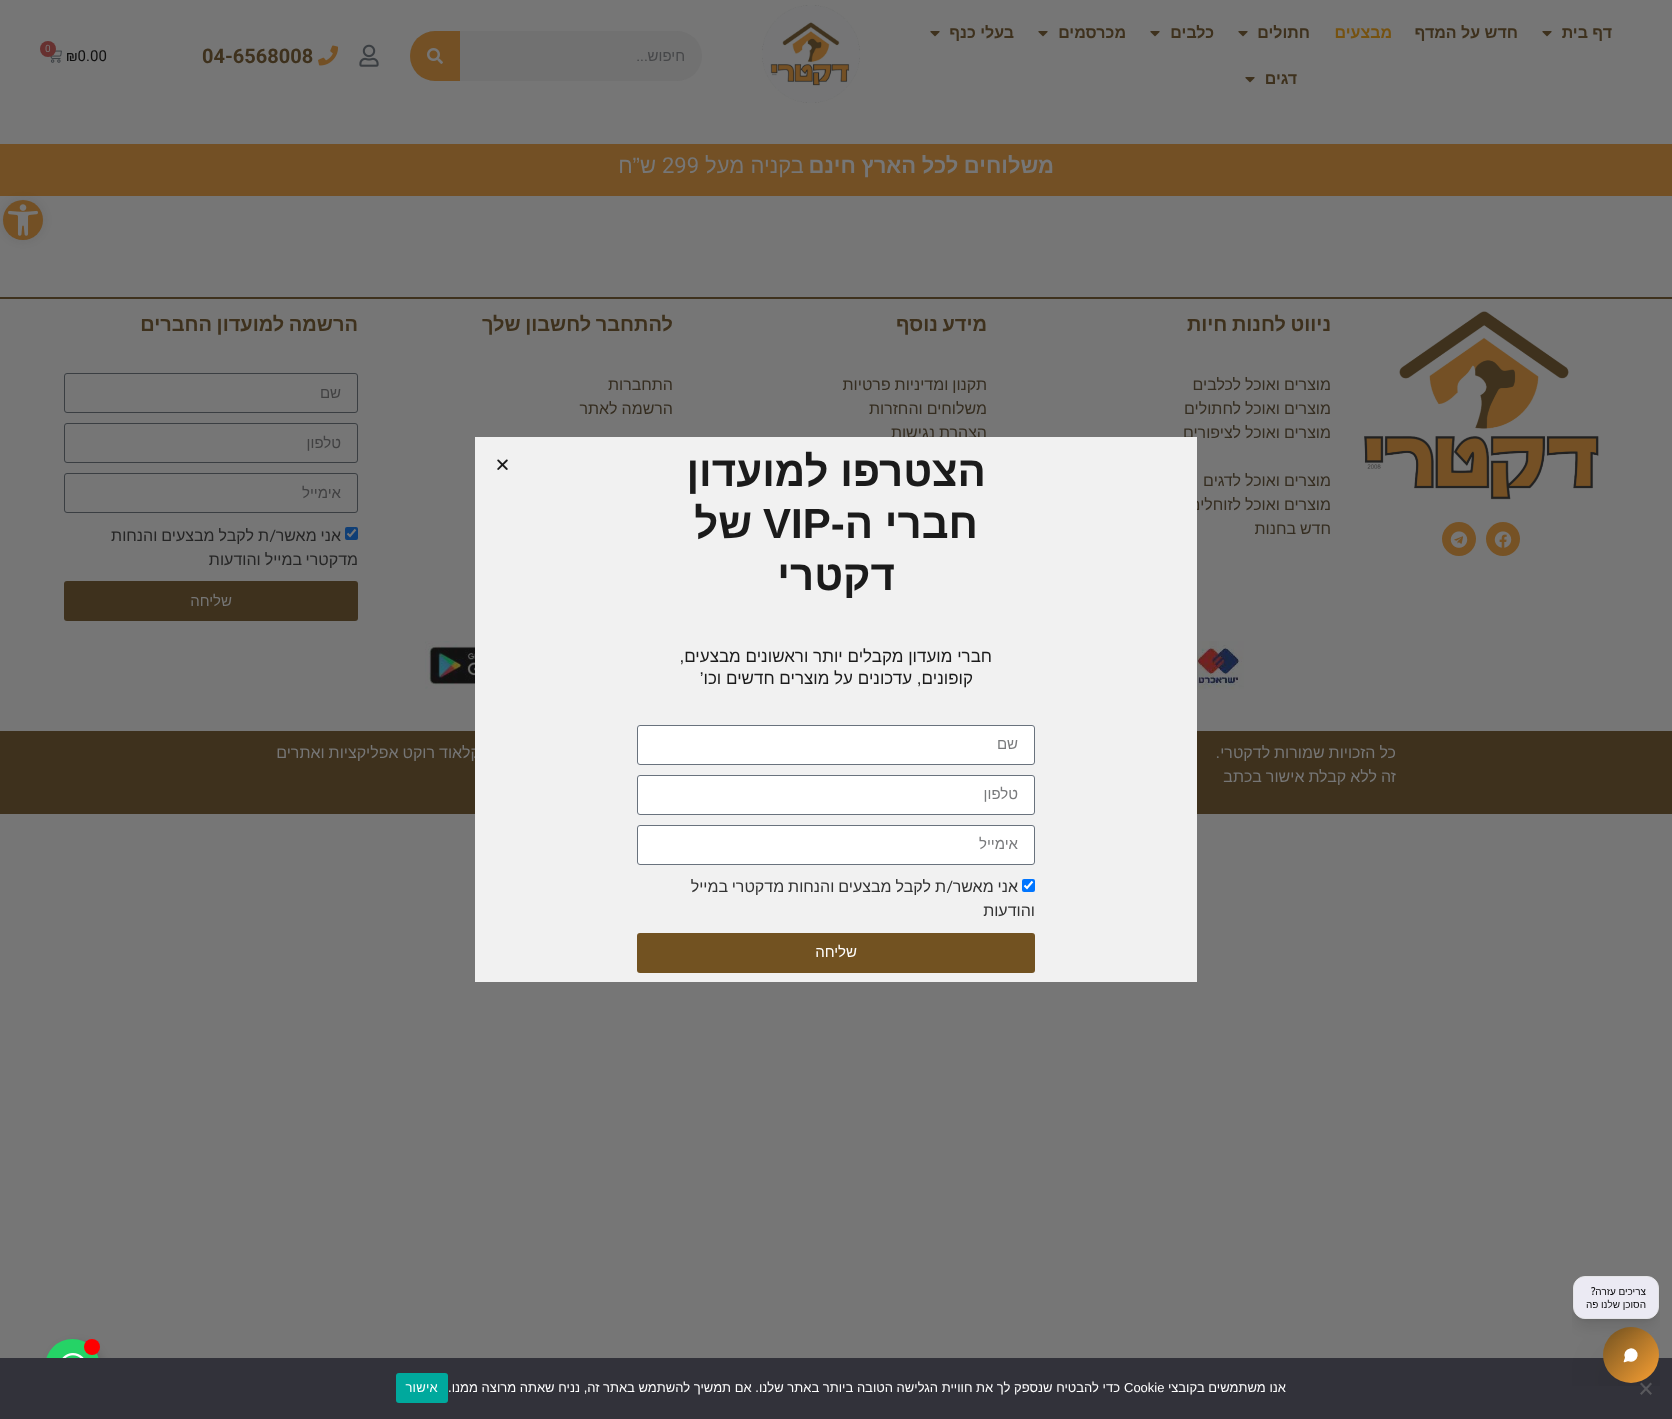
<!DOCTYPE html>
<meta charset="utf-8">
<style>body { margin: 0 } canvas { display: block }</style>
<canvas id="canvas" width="1672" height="1419"></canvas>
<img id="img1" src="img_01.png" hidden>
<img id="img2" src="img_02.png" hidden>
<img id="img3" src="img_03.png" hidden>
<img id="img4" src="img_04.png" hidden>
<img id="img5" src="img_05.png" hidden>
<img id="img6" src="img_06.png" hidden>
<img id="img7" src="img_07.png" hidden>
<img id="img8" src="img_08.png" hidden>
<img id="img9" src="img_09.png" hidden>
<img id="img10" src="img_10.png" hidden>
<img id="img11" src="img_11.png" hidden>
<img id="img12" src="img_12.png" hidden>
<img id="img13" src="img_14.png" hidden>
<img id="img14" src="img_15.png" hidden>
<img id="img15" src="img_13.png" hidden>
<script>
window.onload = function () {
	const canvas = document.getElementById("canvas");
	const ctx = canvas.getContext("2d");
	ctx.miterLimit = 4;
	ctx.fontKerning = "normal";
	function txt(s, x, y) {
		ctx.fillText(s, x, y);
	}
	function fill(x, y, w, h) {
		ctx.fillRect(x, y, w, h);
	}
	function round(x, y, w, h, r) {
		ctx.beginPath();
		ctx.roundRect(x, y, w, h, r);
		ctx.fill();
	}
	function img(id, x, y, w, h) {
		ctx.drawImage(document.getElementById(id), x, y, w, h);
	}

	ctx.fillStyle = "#767676";
	fill(0, 0, 1672, 1419);
	ctx.fillStyle = "#735025";
	fill(0, 144, 1672, 52);
	img("img1", 1542, 31, 10, 6);
	img("img1", 1238, 31, 10, 6);
	img("img1", 1150, 31, 10, 6);
	img("img1", 1038, 31, 10, 6);
	img("img1", 930, 31, 10, 6);
	img("img1", 1245, 77, 10, 6);
	img("img2", 762, 5, 98, 98);
	ctx.fillStyle = "#717171";
	round(410, 31, 292, 50, 25);
	ctx.fillStyle = "#735025";
	ctx.beginPath();
	ctx.roundRect(410, 31, 50, 50, [25, 0, 0, 25]);
	ctx.fill();
	img("img3", 427, 48, 16, 16);
	img("img4", 359, 44, 20, 23);
	img("img5", 318, 45, 20, 21);
	img("img6", 50, 50, 12, 13);
	ctx.fillStyle = "#673130";
	ctx.beginPath();
	ctx.arc(48, 49, 8, 0, Math.PI * 2);
	ctx.fill();
	ctx.fillStyle = "rgba(16, 16, 16, 0.1)";
	ctx.filter = "blur(5px)";
	ctx.beginPath();
	ctx.roundRect(3, 200, 40, 40, 20);
	ctx.fill();
	ctx.filter = "none";
	ctx.fillStyle = "#735025";
	ctx.beginPath();
	ctx.arc(23, 220, 20, 0, Math.PI * 2);
	ctx.fill();
	img("img7", 8, 204, 30, 32);
	ctx.fillStyle = "#3E311D";
	fill(0, 297, 1672, 2);
	img("img8", 1364, 311, 235, 189);
	ctx.fillStyle = "#765225";
	ctx.beginPath();
	ctx.arc(1503, 539, 17, 0, Math.PI * 2);
	ctx.fill();
	img("img9", 1494, 531, 18, 17);
	ctx.beginPath();
	ctx.arc(1459, 539, 17, 0, Math.PI * 2);
	ctx.fill();
	img("img10", 1450, 531, 18, 17);
	ctx.beginPath();
	ctx.roundRect(64.5, 373.5, 293, 39, 2.5);
	ctx.strokeStyle = "#3A3E42";
	ctx.stroke();
	ctx.beginPath();
	ctx.roundRect(64.5, 423.5, 293, 39, 2.5);
	ctx.stroke();
	ctx.beginPath();
	ctx.roundRect(64.5, 473.5, 293, 39, 2.5);
	ctx.stroke();
	ctx.fillStyle = "#103F76";
	round(345, 527, 13, 13, 2);
	ctx.beginPath();
	ctx.moveTo(347.5, 533.5);
	ctx.lineTo(350, 536);
	ctx.lineTo(355.5, 529.5);
	ctx.strokeStyle = "#767676";
	ctx.lineWidth = 2.1;
	ctx.stroke();
	ctx.fillStyle = "#3E311D";
	round(64, 581, 294, 40, 3);
	img("img11", 1197, 641, 47, 49);
	img("img12", 425, 641, 50, 48);
	fill(0, 731, 1672, 83);
	ctx.fillStyle = "rgba(0, 0, 0, 0.15)";
	ctx.filter = "blur(5px)";
	ctx.beginPath();
	ctx.roundRect(49, 1343, 55, 55, 27.5);
	ctx.fill();
	ctx.filter = "none";
	ctx.fillStyle = "#25D366";
	ctx.beginPath();
	ctx.arc(72.5, 1366.5, 27.5, 0, Math.PI * 2);
	ctx.fill();
	ctx.fillStyle = "#32323A";
	fill(0, 1358, 1672, 61);
	ctx.fillStyle = "#59595D";
	ctx.beginPath();
	ctx.moveTo(1650.5, 1382.5);
	ctx.lineTo(1652, 1384);
	ctx.lineTo(1641.5, 1395);
	ctx.lineTo(1640, 1393.5);
	ctx.closePath();
	ctx.fill();
	ctx.beginPath();
	ctx.moveTo(1640, 1384);
	ctx.lineTo(1641.5, 1382.5);
	ctx.lineTo(1652, 1393.5);
	ctx.lineTo(1650.5, 1395);
	ctx.closePath();
	ctx.fill();
	img("img13", 1572, 1276, 88, 110);
	ctx.fillStyle = "#00A99D";
	round(396, 1373, 52, 30, 3);
	ctx.fillStyle = "#FF0000";
	ctx.beginPath();
	ctx.arc(92, 1347, 8, 0, Math.PI * 2);
	ctx.fill();
	img("img14", 62, 1353, 22, 5);
	ctx.direction = "rtl";
	ctx.font = "bold 16px Liberation Sans";
	ctx.fillStyle = "#3E311D";
	txt("דף בית", 1612, 38);
	txt("חדש על המדף", 1518, 38);
	ctx.fillStyle = "#765210";
	txt("מבצעים", 1392, 38);
	ctx.fillStyle = "#3E311D";
	txt("חתולים", 1310, 38);
	txt("כלבים", 1214, 38);
	txt("מכרסמים", 1126, 38);
	txt("בעלי כנף", 1014, 38);
	txt("דגים", 1297, 84);
	ctx.font = "15px Liberation Sans";
	ctx.fillStyle = "#464749";
	txt("חיפוש", 685, 61);
	ctx.font = "15px Roboto";
	txt("...", 648, 61);
	ctx.direction = "ltr";
	ctx.font = "bold 20px Roboto";
	ctx.fillStyle = "#3E311D";
	txt("04-6568008", 202, 63);
	ctx.font = "10px Roboto";
	ctx.fillStyle = "#767676";
	txt("0", 45, 52);
	ctx.font = "15px Roboto";
	ctx.fillStyle = "#101010";
	txt("₪0.00", 66, 61);
	ctx.wordSpacing = "-0.5px";
	ctx.direction = "rtl";
	ctx.font = "bold 22px Liberation Sans";
	ctx.fillStyle = "#767676";
	txt("משלוחים לכל הארץ חינם", 1054, 173);
	ctx.wordSpacing = "0px";
	ctx.font = "22px Liberation Sans";
	txt("בקניה מעל", 804, 173);
	ctx.direction = "ltr";
	ctx.font = "22px Roboto";
	txt("299", 662, 173);
	ctx.direction = "rtl";
	ctx.font = "22px Liberation Sans";
	txt("ש”ח", 656, 173);
	ctx.wordSpacing = "-1px";
	ctx.font = "bold 20px Liberation Sans";
	ctx.fillStyle = "#3E311D";
	txt("ניווט לחנות חיות", 1331, 331);
	ctx.wordSpacing = "-0.5px";
	ctx.font = "16px Liberation Sans";
	ctx.fillStyle = "#352D20";
	txt("מוצרים ואוכל לכלבים", 1331, 390);
	txt("מוצרים ואוכל לחתולים", 1331, 414);
	txt("מוצרים ואוכל לציפורים", 1331, 438);
	txt("מוצרים ואוכל לדגים", 1331, 486);
	txt("מוצרים ואוכל לזוחלים", 1331, 510);
	txt("חדש בחנות", 1331, 534);
	ctx.wordSpacing = "-1px";
	ctx.font = "bold 20px Liberation Sans";
	ctx.fillStyle = "#3E311D";
	txt("מידע נוסף", 987, 331);
	ctx.wordSpacing = "-0.5px";
	ctx.font = "16px Liberation Sans";
	ctx.fillStyle = "#352D20";
	txt("תקנון ומדיניות פרטיות", 987, 390);
	txt("משלוחים והחזרות", 987, 414);
	txt("הצהרת נגישות", 987, 438);
	ctx.wordSpacing = "-1px";
	ctx.font = "bold 20px Liberation Sans";
	ctx.fillStyle = "#3E311D";
	txt("להתחבר לחשבון שלך", 673, 331);
	ctx.wordSpacing = "0px";
	ctx.font = "16px Liberation Sans";
	ctx.fillStyle = "#352D20";
	txt("התחברות", 673, 390);
	ctx.wordSpacing = "-0.5px";
	txt("הרשמה לאתר", 673, 414);
	ctx.wordSpacing = "-1px";
	ctx.font = "bold 20px Liberation Sans";
	ctx.fillStyle = "#3E311D";
	txt("הרשמה למועדון החברים", 358, 331);
	ctx.wordSpacing = "0px";
	ctx.font = "15px Liberation Sans";
	ctx.fillStyle = "#414142";
	txt("שם", 341, 398);
	txt("טלפון", 341, 448);
	txt("אימייל", 341, 498);
	ctx.wordSpacing = "-0.5px";
	ctx.font = "16px Liberation Sans";
	ctx.fillStyle = "#252525";
	txt("אני מאשר", 341, 541);
	txt("ת לקבל מבצעים והנחות", 269, 541);
	ctx.wordSpacing = "0px";
	ctx.font = "16px Roboto";
	txt("/", 276, 541);
	ctx.font = "16px Liberation Sans";
	txt("מדקטרי", 358, 565);
	ctx.wordSpacing = "-0.5px";
	txt("במייל והודעות", 302, 565);
	ctx.wordSpacing = "0px";
	ctx.font = "15px Liberation Sans";
	ctx.fillStyle = "#767676";
	txt("שליחה", 232, 606);
	ctx.wordSpacing = "-0.5px";
	ctx.font = "16px Liberation Sans";
	txt("כל הזכויות שמורות לדקטרי", 1396, 758);
	ctx.wordSpacing = "0px";
	ctx.font = "16px Roboto";
	txt(".", 1220, 758);
	ctx.wordSpacing = "-0.5px";
	ctx.font = "16px Liberation Sans";
	txt("זה ללא קבלת אישור בכתב", 1396, 782);
	txt("קלאוד רוקט אפליקציות ואתרים", 480, 758);
	ctx.fillStyle = "#F1F1F1";
	fill(475, 437, 722, 545);
	ctx.wordSpacing = "0px";
	ctx.font = "bold 42px Liberation Sans";
	ctx.fillStyle = "#1B1B1B";
	txt("הצטרפו למועדון", 986, 486);
	txt("חברי ה-", 978, 538);
	ctx.direction = "ltr";
	txt("VIP", 763, 538);
	ctx.direction = "rtl";
	txt("של", 752, 538);
	txt("דקטרי", 895, 590);
	ctx.font = "17px Liberation Sans";
	txt("חברי מועדון מקבלים יותר וראשונים מבצעים,", 992, 662);
	txt("קופונים, עדכונים על מוצרים חדשים וכו’", 973, 684);
	ctx.fillStyle = "#FFFFFF";
	ctx.beginPath();
	ctx.roundRect(637.5, 725.5, 397, 39, 2.5);
	ctx.fill();
	ctx.strokeStyle = "#69727D";
	ctx.lineWidth = 1;
	ctx.stroke();
	ctx.font = "15px Liberation Sans";
	ctx.fillStyle = "#797A7C";
	txt("שם", 1018, 749);
	ctx.fillStyle = "#FFFFFF";
	ctx.beginPath();
	ctx.roundRect(637.5, 775.5, 397, 39, 2.5);
	ctx.fill();
	ctx.stroke();
	ctx.fillStyle = "#797A7C";
	txt("טלפון", 1018, 799);
	ctx.fillStyle = "#FFFFFF";
	ctx.beginPath();
	ctx.roundRect(637.5, 825.5, 397, 39, 2.5);
	ctx.fill();
	ctx.stroke();
	ctx.fillStyle = "#797A7C";
	txt("אימייל", 1018, 849);
	ctx.fillStyle = "#0075FF";
	round(1022, 879, 13, 13, 2);
	ctx.beginPath();
	ctx.moveTo(1024.5, 885.5);
	ctx.lineTo(1027, 888);
	ctx.lineTo(1032.5, 881.5);
	ctx.strokeStyle = "#FFFFFF";
	ctx.lineWidth = 2.1;
	ctx.stroke();
	ctx.wordSpacing = "-0.5px";
	ctx.font = "16px Liberation Sans";
	ctx.fillStyle = "#333333";
	txt("ת לקבל מבצעים והנחות מדקטרי", 946, 892);
	ctx.wordSpacing = "0px";
	ctx.font = "16px Roboto";
	txt("/", 953, 892);
	ctx.wordSpacing = "-0.5px";
	ctx.font = "16px Liberation Sans";
	txt("אני מאשר", 1018, 892);
	ctx.wordSpacing = "0px";
	txt("במייל", 728, 892);
	txt("והודעות", 1035, 916);
	ctx.fillStyle = "#725221";
	round(637, 933, 398, 40, 3);
	ctx.font = "15px Liberation Sans";
	ctx.fillStyle = "#FFFFFF";
	txt("שליחה", 857, 957);
	img("img15", 497, 459, 11, 11);
	ctx.font = "13px Liberation Sans";
	txt("אנו משתמשים בקובצי", 1286, 1392);
	ctx.direction = "ltr";
	txt("Cookie", 1124, 1392);
	ctx.direction = "rtl";
	txt("כדי להבטיח שנספק לך את חוויית הגלישה הטובה ביותר באתר שלנו. אם תמשיך להשתמש באתר זה, נניח שאתה מרוצה ממנו.", 1120, 1392);
	ctx.letterSpacing = "0.25px";
	txt("אישור", 438, 1392);
};
</script>
